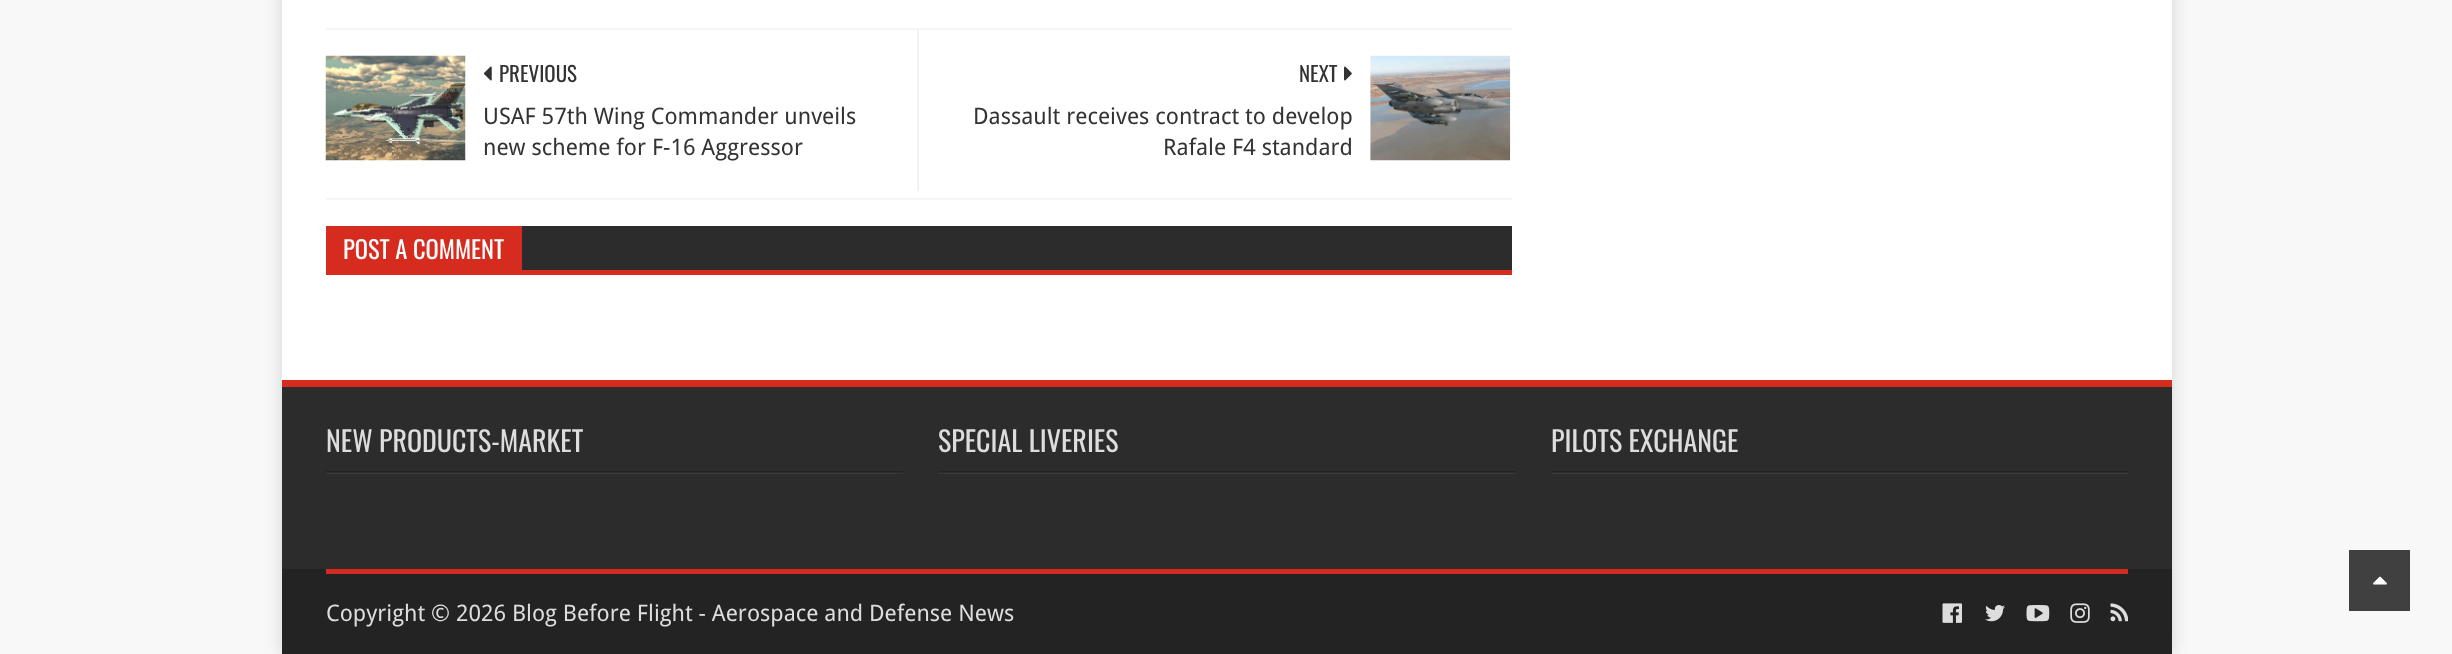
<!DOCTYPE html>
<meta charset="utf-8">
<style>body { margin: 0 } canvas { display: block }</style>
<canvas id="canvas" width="2452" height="654"></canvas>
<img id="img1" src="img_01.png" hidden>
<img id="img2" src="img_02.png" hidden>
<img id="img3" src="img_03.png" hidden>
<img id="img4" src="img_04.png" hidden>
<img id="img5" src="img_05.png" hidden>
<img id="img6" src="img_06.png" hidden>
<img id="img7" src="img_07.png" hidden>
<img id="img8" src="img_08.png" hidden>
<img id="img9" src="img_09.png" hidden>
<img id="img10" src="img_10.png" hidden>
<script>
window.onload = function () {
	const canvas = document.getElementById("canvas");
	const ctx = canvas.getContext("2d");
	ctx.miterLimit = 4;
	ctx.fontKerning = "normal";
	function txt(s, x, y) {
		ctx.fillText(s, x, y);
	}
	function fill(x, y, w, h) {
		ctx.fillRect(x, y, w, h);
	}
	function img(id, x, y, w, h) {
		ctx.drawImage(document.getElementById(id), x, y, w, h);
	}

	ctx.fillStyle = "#F8F8F8";
	fill(0, 0, 2452, 654);
	ctx.fillStyle = "rgba(50, 50, 50, 0.17)";
	ctx.filter = "blur(9px)";
	ctx.beginPath();
	ctx.rect(282, -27, 1890, 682);
	ctx.fill();
	ctx.filter = "none";
	ctx.fillStyle = "#FFFFFF";
	fill(282, 0, 1890, 380);
	ctx.fillStyle = "#F5F5F5";
	fill(326, 28, 1186, 2);
	fill(326, 198, 1186, 2);
	ctx.fillStyle = "#F2F2F2";
	fill(917, 30, 2, 161);
	img("img1", 325, 55, 141, 106);
	img("img2", 483, 66, 9, 15);
	img("img3", 1344, 66, 8, 15);
	img("img4", 1370, 55, 141, 106);
	ctx.fillStyle = "#2C2C2C";
	fill(522, 226, 990, 44);
	ctx.fillStyle = "#D52C1F";
	fill(326, 270, 1186, 5);
	fill(326, 226, 196, 44);
	ctx.fillStyle = "#2C2C2C";
	fill(282, 387, 1890, 182);
	ctx.fillStyle = "#222222";
	fill(1551, 471, 577, 1);
	fill(326, 471, 577, 1);
	ctx.fillStyle = "#D52C1F";
	fill(282, 380, 1890, 7);
	ctx.fillStyle = "#393939";
	fill(326, 473, 577, 1);
	ctx.beginPath();
	ctx.moveTo(938, 472);
	ctx.lineTo(938, 474);
	ctx.lineTo(1516, 474);
	ctx.lineTo(1516, 427);
	ctx.lineTo(1516, 472);
	ctx.closePath();
	ctx.fill();
	ctx.fillStyle = "rgba(0, 0, 0, 0.22)";
	fill(938, 471, 578, 2);
	ctx.fillStyle = "#393939";
	fill(1551, 473, 577, 1);
	ctx.fillStyle = "#232323";
	fill(282, 569, 1890, 85);
	ctx.fillStyle = "#D52C1F";
	fill(326, 569, 1802, 5);
	img("img5", 1942, 603, 20, 20);
	img("img6", 1985, 605, 20, 17);
	img("img7", 2026, 605, 24, 17);
	img("img8", 2070, 603, 20, 20);
	img("img9", 2110, 603, 18, 19);
	ctx.fillStyle = "#404040";
	fill(2349, 550, 61, 61);
	img("img10", 2373, 576, 14, 9);
	ctx.font = "21px Oswald";
	ctx.fillStyle = "#333333";
	txt("PREVIOUS", 499, 82);
	ctx.font = "22.75px Droid Sans";
	txt("USAF 57th Wing Commander unveils", 483, 124);
	txt("new scheme for F-16 Aggressor", 483, 155);
	ctx.font = "21px Oswald";
	txt("NEXT", 1299, 82);
	ctx.font = "22.75px Droid Sans";
	txt("Dassault receives contract to develop", 973, 124);
	txt("Rafale F4 standard", 1163, 155);
	ctx.font = "24.5px Oswald";
	ctx.fillStyle = "#FFFFFF";
	txt("POST A COMMENT", 343, 259);
	ctx.font = "28px Oswald";
	ctx.fillStyle = "#DDDDDD";
	txt("NEW PRODUCTS-MARKET", 326, 452);
	txt("SPECIAL LIVERIES", 938, 452);
	txt("PILOTS EXCHANGE", 1551, 452);
	ctx.font = "22.75px Droid Sans";
	txt("Copyright © 2026 Blog Before Flight - Aerospace and Defense News", 326, 621);
};
</script>
